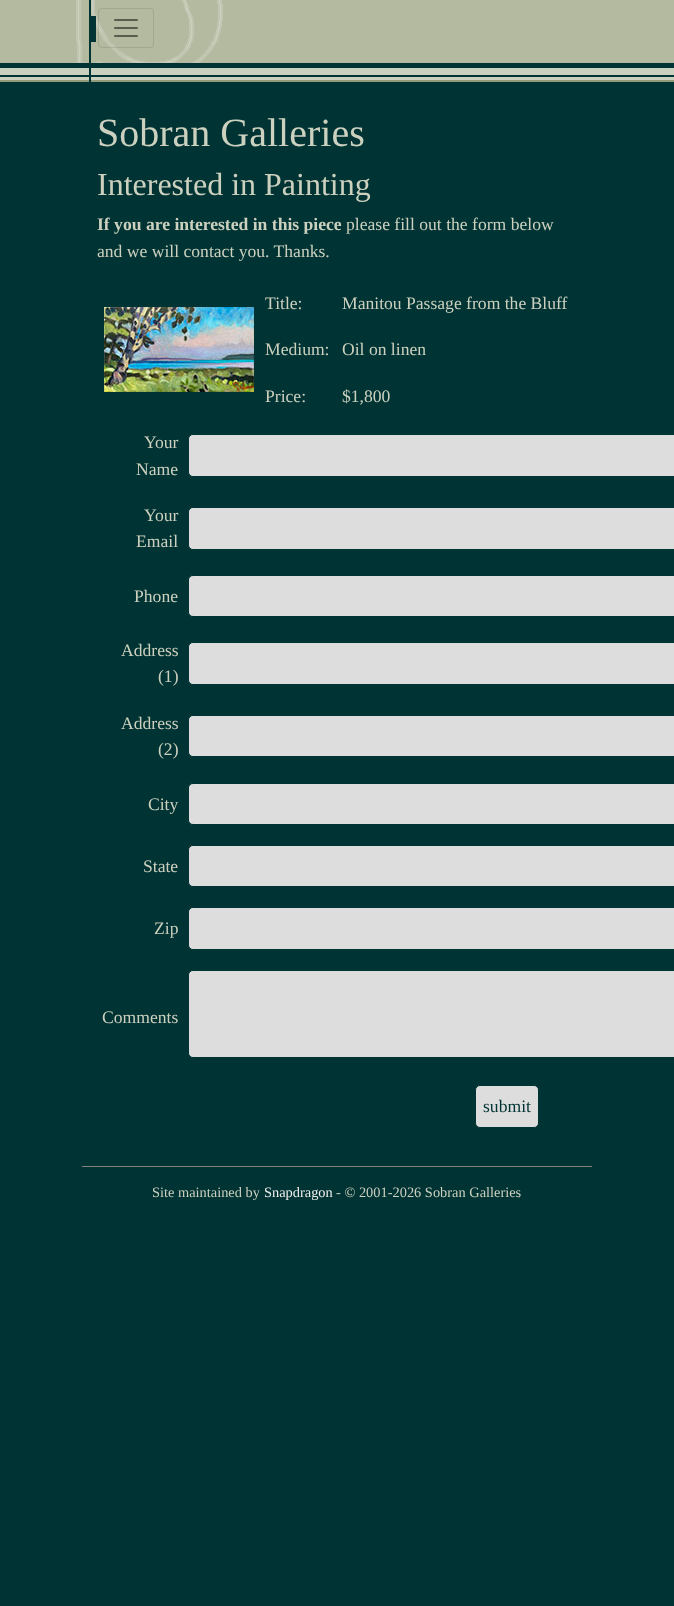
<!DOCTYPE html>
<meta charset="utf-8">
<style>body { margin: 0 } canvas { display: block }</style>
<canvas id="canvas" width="674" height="1606"></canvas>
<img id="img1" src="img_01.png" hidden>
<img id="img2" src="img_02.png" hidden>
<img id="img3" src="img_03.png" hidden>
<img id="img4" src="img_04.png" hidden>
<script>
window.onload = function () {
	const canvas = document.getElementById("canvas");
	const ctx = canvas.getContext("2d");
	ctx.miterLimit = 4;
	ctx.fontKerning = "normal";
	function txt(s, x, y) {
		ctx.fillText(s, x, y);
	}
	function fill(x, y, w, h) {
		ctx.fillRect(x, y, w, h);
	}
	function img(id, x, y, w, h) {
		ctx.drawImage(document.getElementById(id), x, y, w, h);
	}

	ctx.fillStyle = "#003333";
	fill(0, 0, 674, 1606);
	img("img1", 0, 0, 674, 82);
	img("img2", 76, 0, 147, 82);
	ctx.beginPath();
	ctx.roundRect(98.5, 8.5, 55, 39, 3.5);
	ctx.strokeStyle = "rgba(0, 0, 0, 0.1)";
	ctx.stroke();
	img("img3", 114, 19, 24, 18);
	img("img4", 104, 307, 150, 85);
	ctx.fillStyle = "#DDDDDD";
	ctx.beginPath();
	ctx.roundRect(188.5, 434.5, 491, 42, 4.5);
	ctx.fill();
	ctx.strokeStyle = "#003333";
	ctx.stroke();
	ctx.beginPath();
	ctx.roundRect(188.5, 507.5, 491, 42, 4.5);
	ctx.fill();
	ctx.stroke();
	ctx.beginPath();
	ctx.roundRect(188.5, 575.5, 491, 41, 4.5);
	ctx.fill();
	ctx.stroke();
	ctx.beginPath();
	ctx.roundRect(188.5, 642.5, 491, 42, 4.5);
	ctx.fill();
	ctx.stroke();
	ctx.beginPath();
	ctx.roundRect(188.5, 715.5, 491, 41, 4.5);
	ctx.fill();
	ctx.stroke();
	ctx.beginPath();
	ctx.roundRect(188.5, 783.5, 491, 41, 4.5);
	ctx.fill();
	ctx.stroke();
	ctx.beginPath();
	ctx.roundRect(188.5, 845.5, 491, 41, 4.5);
	ctx.fill();
	ctx.stroke();
	ctx.beginPath();
	ctx.roundRect(188.5, 907.5, 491, 42, 4.5);
	ctx.fill();
	ctx.stroke();
	ctx.beginPath();
	ctx.roundRect(188.5, 970.5, 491, 87, 4.5);
	ctx.fill();
	ctx.stroke();
	ctx.beginPath();
	ctx.roundRect(475.5, 1085.5, 63, 42, 4.5);
	ctx.fill();
	ctx.stroke();
	ctx.fillStyle = "#7F8278";
	fill(82, 1166, 510, 1);
	ctx.font = "40px Liberation Serif";
	ctx.fillStyle = "#CCD1BF";
	txt("Sobran Galleries", 97, 146);
	ctx.font = "32px Liberation Serif";
	txt("Interested in Painting", 97, 195);
	ctx.font = "bold 17.6px Liberation Serif";
	txt("If you are interested in this piece", 97, 230);
	ctx.font = "17.6px Liberation Serif";
	txt("please fill out the form below", 346, 230);
	txt("and we will contact you. Thanks.", 97, 257);
	txt("Title:", 265, 309);
	txt("Manitou Passage from the Bluff", 342, 309);
	txt("Medium:", 265, 355);
	txt("Oil on linen", 342, 355);
	txt("Price:", 265, 402);
	txt("$1,800", 342, 402);
	txt("Your", 144, 448);
	txt("Name", 136, 475);
	txt("Your", 144, 521);
	txt("Email", 136, 547);
	txt("Phone", 134, 602);
	txt("Address", 121, 656);
	txt("(1)", 158, 682);
	txt("Address", 121, 729);
	txt("(2)", 158, 755);
	txt("City", 148, 810);
	txt("State", 143, 872);
	txt("Zip", 154, 934);
	txt("Comments", 102, 1023);
	ctx.fillStyle = "#003333";
	txt("submit", 483, 1112);
	ctx.font = "14.4px Liberation Serif";
	ctx.fillStyle = "#CCD1BF";
	txt("Site maintained by", 152, 1197);
	ctx.fillStyle = "#EEEEEE";
	txt("Snapdragon", 264, 1197);
	ctx.fillStyle = "#CCD1BF";
	txt("- © 2001-2026 Sobran Galleries", 336, 1197);
};
</script>
